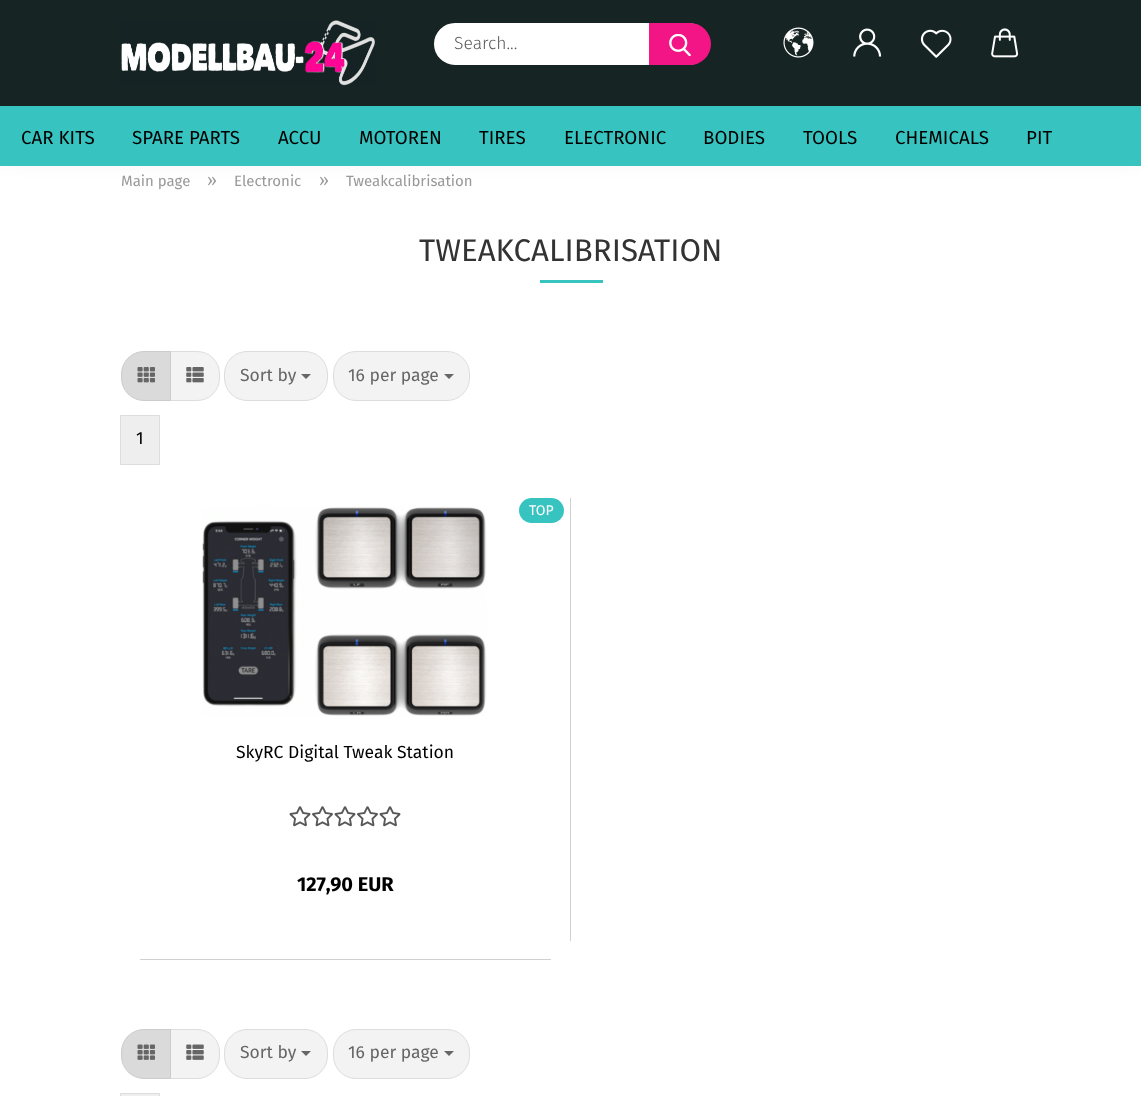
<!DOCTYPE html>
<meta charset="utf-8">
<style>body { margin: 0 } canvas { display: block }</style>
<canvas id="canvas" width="1141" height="1096"></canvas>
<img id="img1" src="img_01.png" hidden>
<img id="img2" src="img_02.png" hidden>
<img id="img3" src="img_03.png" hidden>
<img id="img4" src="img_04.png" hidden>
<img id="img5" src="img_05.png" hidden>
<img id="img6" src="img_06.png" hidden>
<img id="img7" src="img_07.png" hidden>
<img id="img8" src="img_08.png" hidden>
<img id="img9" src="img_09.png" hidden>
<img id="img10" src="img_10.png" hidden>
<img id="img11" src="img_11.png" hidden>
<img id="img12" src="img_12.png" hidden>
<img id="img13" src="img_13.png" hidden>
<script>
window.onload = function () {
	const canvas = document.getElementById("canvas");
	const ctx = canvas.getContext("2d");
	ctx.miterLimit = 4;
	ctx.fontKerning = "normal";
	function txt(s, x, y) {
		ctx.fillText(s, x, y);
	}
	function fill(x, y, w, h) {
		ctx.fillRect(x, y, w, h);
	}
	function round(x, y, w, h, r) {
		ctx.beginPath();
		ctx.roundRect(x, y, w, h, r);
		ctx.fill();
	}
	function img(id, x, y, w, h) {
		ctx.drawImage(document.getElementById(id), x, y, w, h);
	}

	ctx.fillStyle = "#FFFFFF";
	fill(0, 0, 1141, 1096);
	ctx.fillStyle = "rgba(0, 0, 0, 0.3)";
	ctx.filter = "blur(15.5px)";
	ctx.beginPath();
	ctx.rect(0, 0, 1141, 144);
	ctx.fill();
	ctx.filter = "none";
	ctx.fillStyle = "#162423";
	fill(0, 0, 1141, 106);
	img("img1", 121, 20, 254, 66);
	ctx.fillStyle = "#FFFFFF";
	ctx.beginPath();
	ctx.roundRect(435.5, 24.5, 272, 39, 19.5);
	ctx.fill();
	ctx.strokeStyle = "#FFFFFF";
	ctx.lineWidth = 3;
	ctx.stroke();
	ctx.fillStyle = "#F31486";
	ctx.beginPath();
	ctx.roundRect(649, 23, 62, 42, [0, 21, 21, 0]);
	ctx.fill();
	img("img2", 669, 34, 22, 22);
	img("img3", 783, 27, 31, 31);
	img("img4", 853, 28, 29, 29);
	img("img5", 920, 29, 32, 29);
	img("img6", 991, 28, 28, 30);
	ctx.fillStyle = "#37C4C0";
	fill(0, 106, 1141, 60);
	fill(540, 280, 63, 3);
	ctx.fillStyle = "#F3F3F3";
	ctx.beginPath();
	ctx.roundRect(170.5, 351.5, 49, 49, [0, 22.5, 22.5, 0]);
	ctx.fill();
	ctx.strokeStyle = "#DDDDDD";
	ctx.lineWidth = 1;
	ctx.stroke();
	ctx.fillStyle = "#DADADA";
	ctx.beginPath();
	ctx.roundRect(121.5, 351.5, 49, 49, [22.5, 0, 0, 22.5]);
	ctx.fill();
	ctx.strokeStyle = "#CCCCCC";
	ctx.stroke();
	img("img7", 137, 367, 18, 16);
	img("img8", 186, 367, 18, 16);
	ctx.fillStyle = "#F3F3F3";
	ctx.beginPath();
	ctx.roundRect(224.5, 351.5, 103, 49, 22.5);
	ctx.fill();
	ctx.strokeStyle = "#DDDDDD";
	ctx.stroke();
	ctx.fillStyle = "#666666";
	ctx.beginPath();
	ctx.moveTo(301, 374);
	ctx.lineTo(311, 374);
	ctx.lineTo(306, 379);
	ctx.closePath();
	ctx.fill();
	ctx.fillStyle = "#F3F3F3";
	ctx.beginPath();
	ctx.roundRect(333.5, 351.5, 136, 49, 22.5);
	ctx.fill();
	ctx.stroke();
	ctx.fillStyle = "#666666";
	ctx.beginPath();
	ctx.moveTo(444, 374);
	ctx.lineTo(454, 374);
	ctx.lineTo(449, 379);
	ctx.closePath();
	ctx.fill();
	ctx.fillStyle = "#EEEEEE";
	ctx.beginPath();
	ctx.rect(120.5, 415.5, 39, 49);
	ctx.fill();
	ctx.stroke();
	ctx.fillStyle = "#D1D1D1";
	fill(570, 498, 1, 443);
	fill(140, 959, 411, 1);
	img("img9", 202, 506, 285, 210);
	ctx.fillStyle = "#37C4C0";
	round(519, 498, 45, 25, 12.5);
	img("img10", 289, 806, 22, 21);
	img("img11", 312, 806, 21, 21);
	img("img10", 334, 806, 22, 21);
	img("img11", 357, 806, 21, 21);
	img("img10", 379, 806, 22, 21);
	ctx.fillStyle = "#F3F3F3";
	ctx.beginPath();
	ctx.roundRect(170.5, 1029.5, 49, 49, [0, 22.5, 22.5, 0]);
	ctx.fill();
	ctx.stroke();
	ctx.fillStyle = "#DADADA";
	ctx.beginPath();
	ctx.roundRect(121.5, 1029.5, 49, 49, [22.5, 0, 0, 22.5]);
	ctx.fill();
	ctx.strokeStyle = "#CCCCCC";
	ctx.stroke();
	img("img12", 137, 1044, 18, 16);
	img("img13", 186, 1044, 18, 16);
	ctx.fillStyle = "#F3F3F3";
	ctx.beginPath();
	ctx.roundRect(224.5, 1029.5, 103, 49, 22.5);
	ctx.fill();
	ctx.strokeStyle = "#DDDDDD";
	ctx.stroke();
	ctx.fillStyle = "#666666";
	ctx.beginPath();
	ctx.moveTo(301, 1051);
	ctx.lineTo(311, 1051);
	ctx.lineTo(306, 1056);
	ctx.closePath();
	ctx.fill();
	ctx.fillStyle = "#F3F3F3";
	ctx.beginPath();
	ctx.roundRect(333.5, 1029.5, 136, 49, 22.5);
	ctx.fill();
	ctx.stroke();
	ctx.fillStyle = "#666666";
	ctx.beginPath();
	ctx.moveTo(444, 1051);
	ctx.lineTo(454, 1051);
	ctx.lineTo(449, 1056);
	ctx.closePath();
	ctx.fill();
	ctx.fillStyle = "#EEEEEE";
	ctx.beginPath();
	ctx.rect(120.5, 1093.5, 39, 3);
	ctx.fill();
	ctx.stroke();
	ctx.font = "300 17.5px Fira Sans";
	ctx.fillStyle = "#595959";
	txt("Search...", 454, 49);
	ctx.font = "18.75px Fira Sans";
	ctx.fillStyle = "#000000";
	txt("CAR KITS", 21, 144);
	txt("SPARE PARTS", 132, 144);
	txt("ACCU", 278, 144);
	txt("MOTOREN", 359, 144);
	txt("TIRES", 479, 144);
	txt("ELECTRONIC", 564, 144);
	txt("BODIES", 703, 144);
	txt("TOOLS", 803, 144);
	txt("CHEMICALS", 895, 144);
	txt("PIT", 1026, 144);
	ctx.font = "15px Fira Sans";
	ctx.fillStyle = "#999999";
	txt("Main page", 121, 186);
	ctx.font = "17.5px Fira Sans";
	txt("»", 207, 186);
	ctx.font = "15px Fira Sans";
	txt("Electronic", 234, 186);
	ctx.font = "17.5px Fira Sans";
	txt("»", 319, 186);
	ctx.font = "15px Fira Sans";
	txt("Tweakcalibrisation", 346, 186);
	ctx.font = "31.25px Fira Sans";
	ctx.fillStyle = "#333333";
	txt("TWEAKCALIBRISATION", 419, 261);
	ctx.font = "17.5px Fira Sans";
	ctx.fillStyle = "#666666";
	txt("Sort by", 240, 381);
	txt("16 per page", 348, 381);
	ctx.fillStyle = "#000000";
	txt("1", 136, 444);
	ctx.font = "14px Fira Sans";
	ctx.fillStyle = "#FFFFFF";
	txt("TOP", 529, 515);
	ctx.font = "17.5px Fira Sans";
	ctx.fillStyle = "#000000";
	txt("SkyRC Digital Tweak Station", 236, 758);
	ctx.font = "bold 20px Fira Sans";
	txt("127,90 EUR", 297, 891);
	ctx.font = "17.5px Fira Sans";
	ctx.fillStyle = "#666666";
	txt("Sort by", 240, 1058);
	txt("16 per page", 348, 1058);
};
</script>
